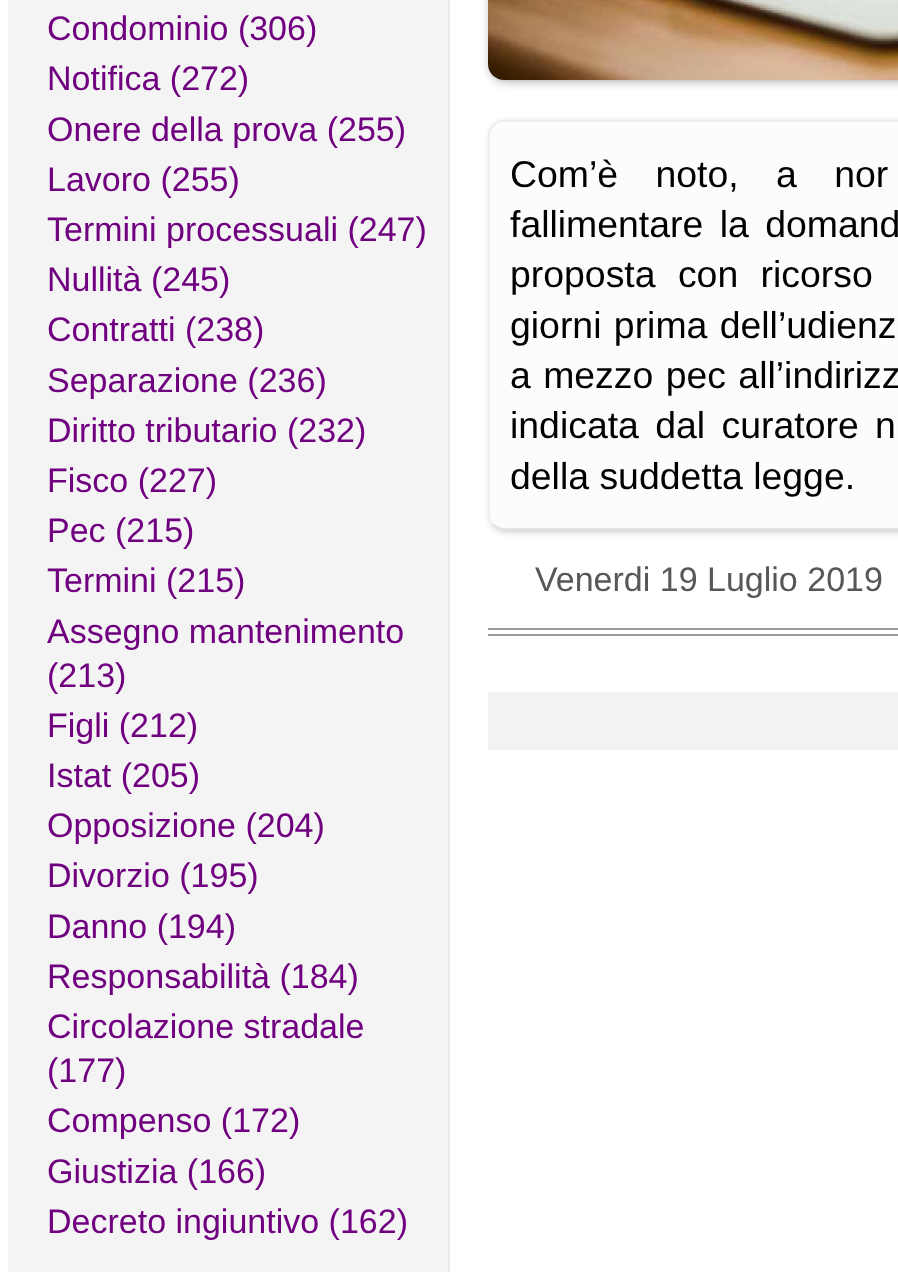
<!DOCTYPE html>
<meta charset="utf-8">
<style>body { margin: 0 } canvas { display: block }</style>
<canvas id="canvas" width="898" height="1272"></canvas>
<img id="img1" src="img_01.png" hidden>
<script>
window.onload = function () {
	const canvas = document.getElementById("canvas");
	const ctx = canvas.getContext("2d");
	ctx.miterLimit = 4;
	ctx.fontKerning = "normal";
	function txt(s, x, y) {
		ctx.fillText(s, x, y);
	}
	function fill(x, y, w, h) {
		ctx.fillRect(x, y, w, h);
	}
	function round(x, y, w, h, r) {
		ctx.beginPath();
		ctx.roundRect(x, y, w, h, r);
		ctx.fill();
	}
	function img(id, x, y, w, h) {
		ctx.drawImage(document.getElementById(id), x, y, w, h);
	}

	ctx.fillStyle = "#FFFFFF";
	fill(0, 0, 898, 1272);
	ctx.fillStyle = "#F4F4F4";
	fill(8, 0, 440, 1272);
	ctx.fillStyle = "#EAEAEA";
	ctx.beginPath();
	ctx.moveTo(450, -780);
	ctx.bezierCurveTo(450, -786, 446, -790, 440, -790);
	ctx.bezierCurveTo(444, -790, 448, -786, 448, -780);
	ctx.lineTo(448, 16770);
	ctx.bezierCurveTo(448, 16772, 447, 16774, 446, 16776);
	ctx.lineTo(447, 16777);
	ctx.bezierCurveTo(449, 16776, 450, 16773, 450, 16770);
	ctx.closePath();
	ctx.fill();
	ctx.fillStyle = "rgba(0, 0, 0, 0.3)";
	ctx.filter = "blur(5px)";
	ctx.beginPath();
	ctx.roundRect(490, -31, 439, 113, 16);
	ctx.fill();
	ctx.filter = "none";
	img("img1", 488, 0, 410, 80);
	ctx.fillStyle = "#9A9A9A";
	fill(488, 628, 410, 2);
	ctx.fillStyle = "rgba(0, 0, 0, 0.2)";
	ctx.filter = "blur(3px)";
	ctx.beginPath();
	ctx.roundRect(490, 122, 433, 410, 16);
	ctx.fill();
	ctx.filter = "none";
	ctx.fillStyle = "#FCFCFC";
	round(488, 120, 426, 410, 16);
	ctx.beginPath();
	ctx.moveTo(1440.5, 125.5);
	ctx.bezierCurveTo(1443.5, 128, 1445, 132, 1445, 136);
	ctx.lineTo(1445, 514);
	ctx.bezierCurveTo(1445, 518, 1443.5, 522, 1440.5, 524.5);
	ctx.bezierCurveTo(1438, 527.5, 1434, 529, 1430, 529);
	ctx.lineTo(504, 529);
	ctx.bezierCurveTo(500, 529, 496, 527.5, 493.5, 524.5);
	ctx.strokeStyle = "#E2E2E2";
	ctx.lineWidth = 2;
	ctx.stroke();
	ctx.beginPath();
	ctx.moveTo(493.5, 524.5);
	ctx.bezierCurveTo(490.5, 522, 489, 518, 489, 514);
	ctx.lineTo(489, 136);
	ctx.bezierCurveTo(489, 132, 490.5, 128, 493.5, 125.5);
	ctx.bezierCurveTo(496, 122.5, 500, 121, 504, 121);
	ctx.lineTo(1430, 121);
	ctx.bezierCurveTo(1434, 121, 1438, 122.5, 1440.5, 125.5);
	ctx.strokeStyle = "#EEEEEE";
	ctx.stroke();
	ctx.fillStyle = "#9A9A9A";
	fill(488, 634, 410, 2);
	ctx.fillStyle = "#F2F2F2";
	fill(488, 692, 410, 58);
	ctx.font = "34px Liberation Sans";
	ctx.fillStyle = "#700080";
	txt("Condominio (306)", 47, 40);
	txt("Notifica (272)", 47, 90);
	txt("Onere della prova (255)", 47, 141);
	txt("Lavoro (255)", 47, 191);
	txt("Termini processuali (247)", 47, 241);
	txt("Nullità (245)", 47, 291);
	txt("Contratti (238)", 47, 341);
	txt("Separazione (236)", 47, 392);
	txt("Diritto tributario (232)", 47, 442);
	txt("Fisco (227)", 47, 492);
	txt("Pec (215)", 47, 542);
	txt("Termini (215)", 47, 592);
	txt("Assegno mantenimento", 47, 643);
	txt("(213)", 47, 687);
	txt("Figli (212)", 47, 737);
	txt("Istat (205)", 47, 787);
	txt("Opposizione (204)", 47, 837);
	txt("Divorzio (195)", 47, 887);
	txt("Danno (194)", 47, 938);
	txt("Responsabilità (184)", 47, 988);
	txt("Circolazione stradale", 47, 1038);
	txt("(177)", 47, 1082);
	txt("Compenso (172)", 47, 1132);
	txt("Giustizia (166)", 47, 1183);
	txt("Decreto ingiuntivo (162)", 47, 1233);
	ctx.wordSpacing = "27px";
	ctx.font = "37.4px Liberation Sans";
	ctx.fillStyle = "#000000";
	txt("Com’è noto, a nor", 510, 187);
	ctx.wordSpacing = "6px";
	txt("fallimentare la domand", 510, 237);
	ctx.wordSpacing = "12px";
	txt("proposta con ricorso", 510, 287);
	ctx.wordSpacing = "2px";
	txt("giorni prima dell’udienz", 510, 338);
	txt("a mezzo pec all’indirizz", 510, 388);
	ctx.wordSpacing = "6px";
	txt("indicata dal curatore n", 510, 438);
	ctx.wordSpacing = "0px";
	txt("della suddetta legge.", 510, 489);
	ctx.font = "34px Liberation Sans";
	ctx.fillStyle = "#575757";
	txt("Venerdi 19 Luglio 2019", 535, 591);
};
</script>
